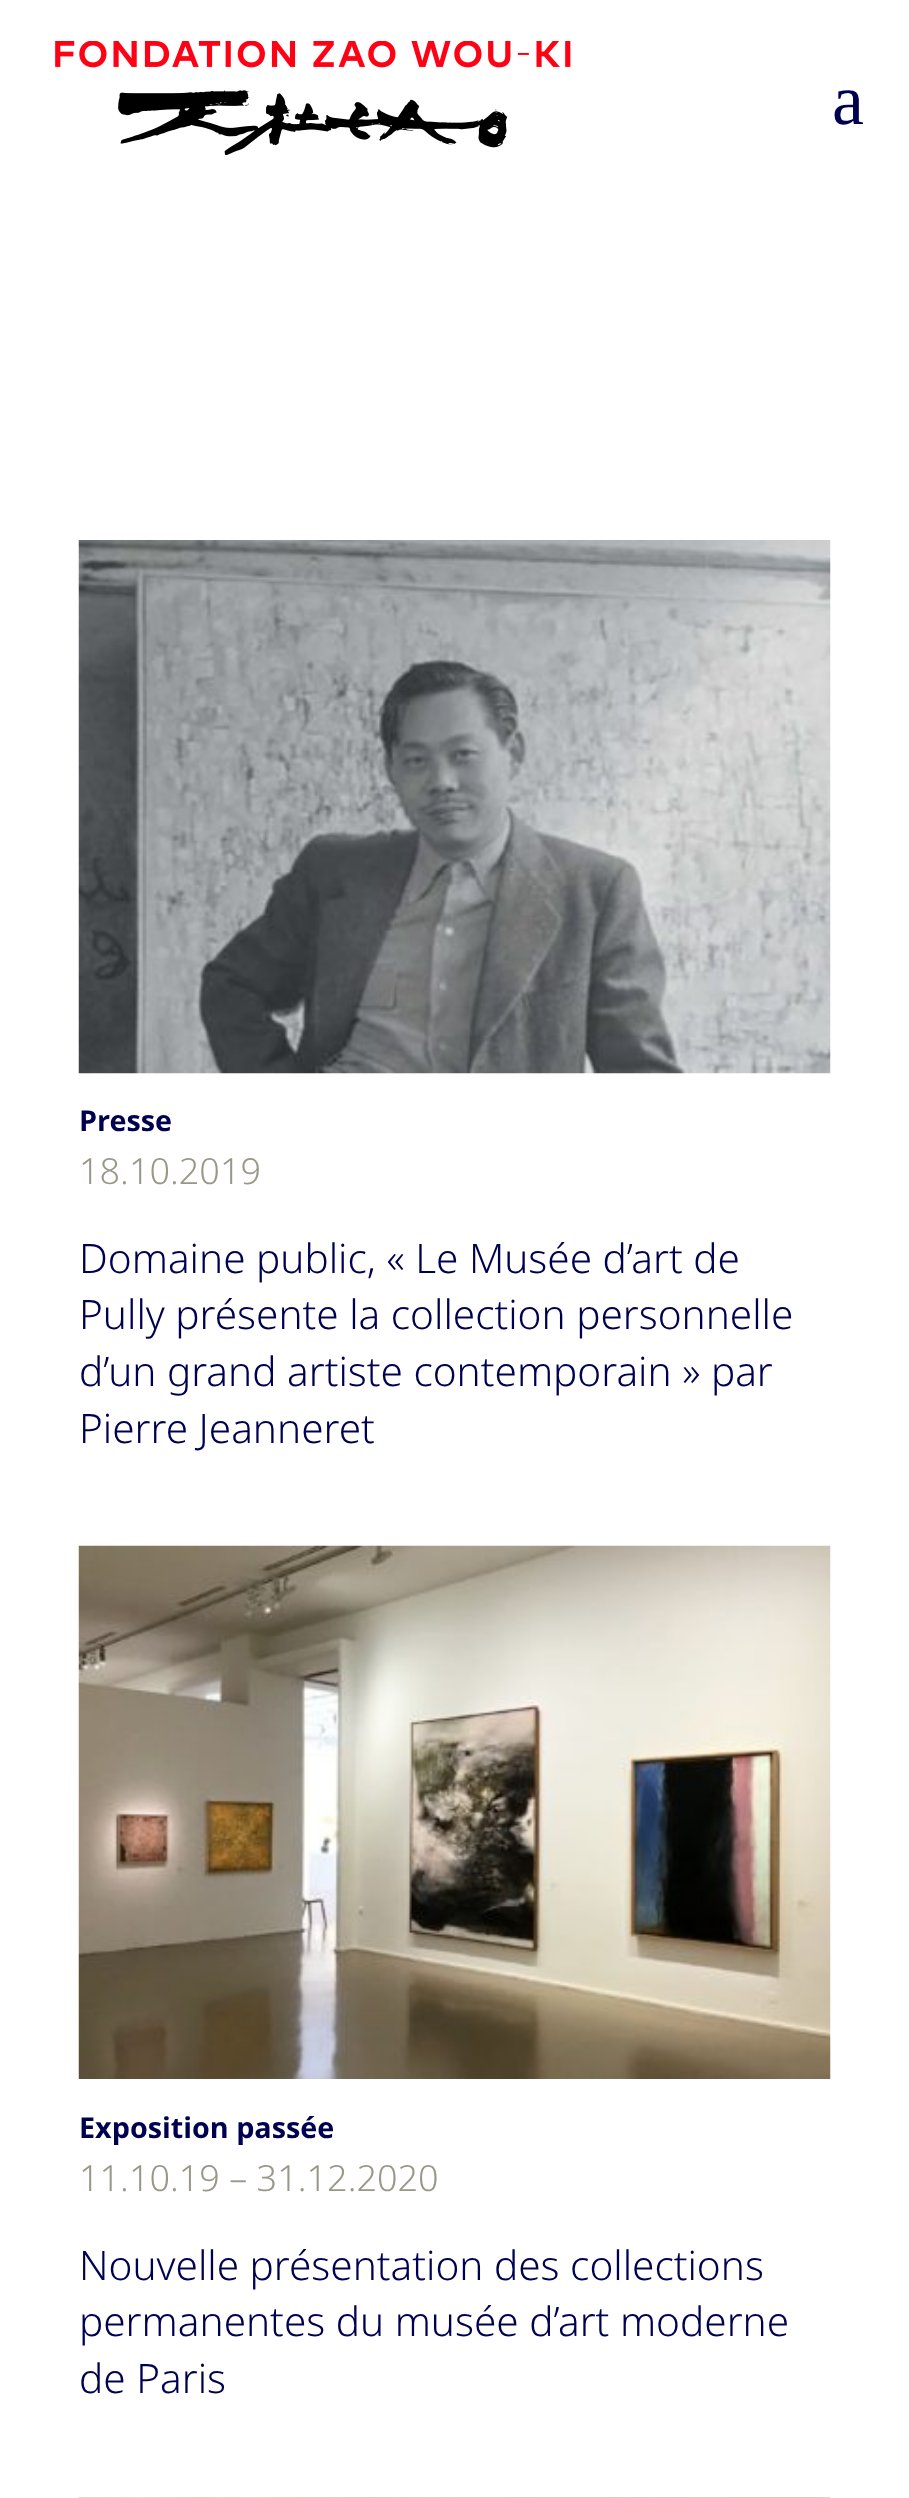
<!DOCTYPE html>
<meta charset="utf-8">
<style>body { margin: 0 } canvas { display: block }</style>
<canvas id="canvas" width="909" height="2498"></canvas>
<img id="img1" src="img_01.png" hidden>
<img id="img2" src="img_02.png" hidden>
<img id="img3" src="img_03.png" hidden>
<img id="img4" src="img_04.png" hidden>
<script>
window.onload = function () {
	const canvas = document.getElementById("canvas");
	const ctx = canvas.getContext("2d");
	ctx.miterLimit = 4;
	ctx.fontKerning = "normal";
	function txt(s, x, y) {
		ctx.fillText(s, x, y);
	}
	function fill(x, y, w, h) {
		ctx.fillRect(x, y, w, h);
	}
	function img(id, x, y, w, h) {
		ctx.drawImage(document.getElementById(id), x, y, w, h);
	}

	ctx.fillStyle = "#FFFFFF";
	fill(0, 0, 909, 2498);
	img("img1", 55, 41, 516, 114);
	img("img2", 78, 540, 753, 534);
	img("img3", 78, 1545, 753, 534);
	img("img4", 78, 2497, 753, 1);
	ctx.font = "72px Liberation Serif";
	ctx.fillStyle = "#000050";
	txt("a", 832, 124);
	ctx.font = "bold 28.75px Noto Sans";
	txt("Presse", 79, 1131);
	ctx.font = "300 36px Noto Sans";
	ctx.fillStyle = "#99968A";
	txt("18.10.2019", 79, 1184);
	ctx.font = "300 40.5px Noto Sans";
	ctx.fillStyle = "#000050";
	txt("Domaine public, « Le Musée d’art de", 79, 1273);
	txt("Pully présente la collection personnelle", 79, 1329);
	txt("d’un grand artiste contemporain » par", 79, 1386);
	txt("Pierre Jeanneret", 79, 1443);
	ctx.font = "bold 28.75px Noto Sans";
	txt("Exposition passée", 79, 2138);
	ctx.font = "300 36px Noto Sans";
	ctx.fillStyle = "#99968A";
	txt("11.10.19 – 31.12.2020", 79, 2191);
	ctx.font = "300 40.5px Noto Sans";
	ctx.fillStyle = "#000050";
	txt("Nouvelle présentation des collections", 79, 2280);
	txt("permanentes du musée d’art moderne", 79, 2336);
	txt("de Paris", 79, 2393);
};
</script>
